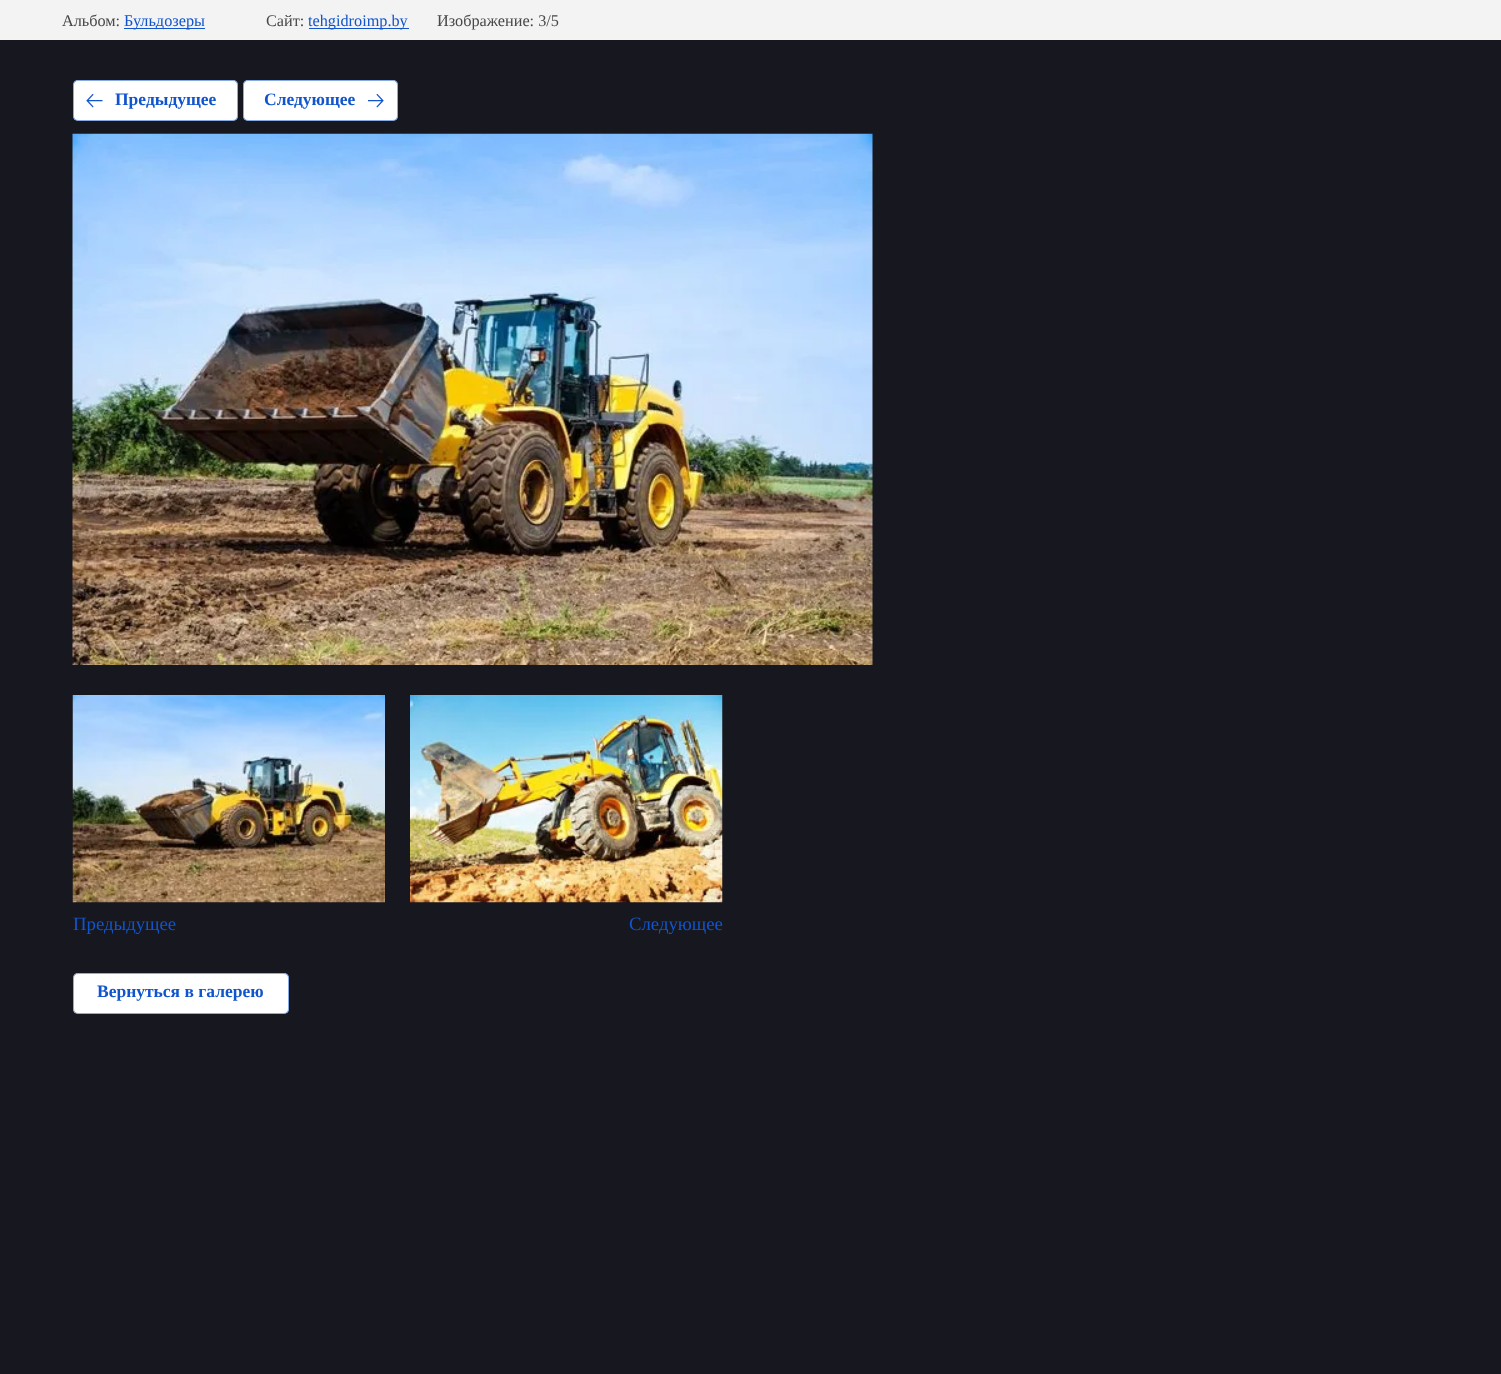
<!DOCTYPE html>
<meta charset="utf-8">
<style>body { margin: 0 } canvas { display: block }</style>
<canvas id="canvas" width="1501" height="1374"></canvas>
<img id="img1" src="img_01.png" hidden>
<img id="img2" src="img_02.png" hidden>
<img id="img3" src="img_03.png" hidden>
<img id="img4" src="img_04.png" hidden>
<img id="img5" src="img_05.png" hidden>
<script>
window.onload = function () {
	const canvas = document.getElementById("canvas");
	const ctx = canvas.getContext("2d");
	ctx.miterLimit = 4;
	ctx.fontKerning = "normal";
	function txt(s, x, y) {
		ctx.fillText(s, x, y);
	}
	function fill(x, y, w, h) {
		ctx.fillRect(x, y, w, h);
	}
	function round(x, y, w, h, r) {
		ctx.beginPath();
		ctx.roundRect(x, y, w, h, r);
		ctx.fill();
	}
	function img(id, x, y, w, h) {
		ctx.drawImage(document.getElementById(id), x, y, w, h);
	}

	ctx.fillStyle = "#171720";
	fill(0, 0, 1501, 1374);
	ctx.fillStyle = "#F3F3F3";
	fill(0, 0, 1501, 40);
	ctx.fillStyle = "#1155CC";
	fill(124, 28, 81, 1);
	fill(309, 28, 100, 1);
	ctx.fillStyle = "#FFFFFF";
	round(73, 80, 165, 41, 5);
	ctx.beginPath();
	ctx.roundRect(73.5, 80.5, 164, 40, 4.5);
	ctx.strokeStyle = "rgba(17, 85, 204, 0.5)";
	ctx.stroke();
	img("img1", 86, 94, 17, 14);
	round(243, 80, 155, 41, 5);
	ctx.beginPath();
	ctx.roundRect(243.5, 80.5, 154, 40, 4.5);
	ctx.stroke();
	img("img2", 368, 94, 16, 14);
	img("img3", 72, 133, 801, 532);
	img("img4", 72, 695, 313, 208);
	img("img5", 410, 695, 313, 208);
	round(73, 973, 216, 41, 5);
	ctx.beginPath();
	ctx.roundRect(73.5, 973.5, 215, 40, 4.5);
	ctx.stroke();
	ctx.font = "16.25px Liberation Serif";
	ctx.fillStyle = "#484848";
	txt("Альбом:", 62, 26);
	ctx.fillStyle = "#1155CC";
	txt("Бульдозеры", 124, 26);
	ctx.fillStyle = "#484848";
	txt("Сайт:", 266, 26);
	ctx.fillStyle = "#1155CC";
	txt("tehgidroimp.by", 308, 26);
	ctx.fillStyle = "#484848";
	txt("Изображение: 3/5", 437, 26);
	ctx.font = "bold 17.5px Liberation Serif";
	ctx.fillStyle = "#1155CC";
	txt("Предыдущее", 115, 105);
	txt("Следующее", 264, 105);
	ctx.font = "18.75px Liberation Serif";
	txt("Предыдущее", 73, 930);
	txt("Следующее", 629, 930);
	ctx.font = "bold 17.5px Liberation Serif";
	txt("Вернуться в галерею", 97, 997);
};
</script>
